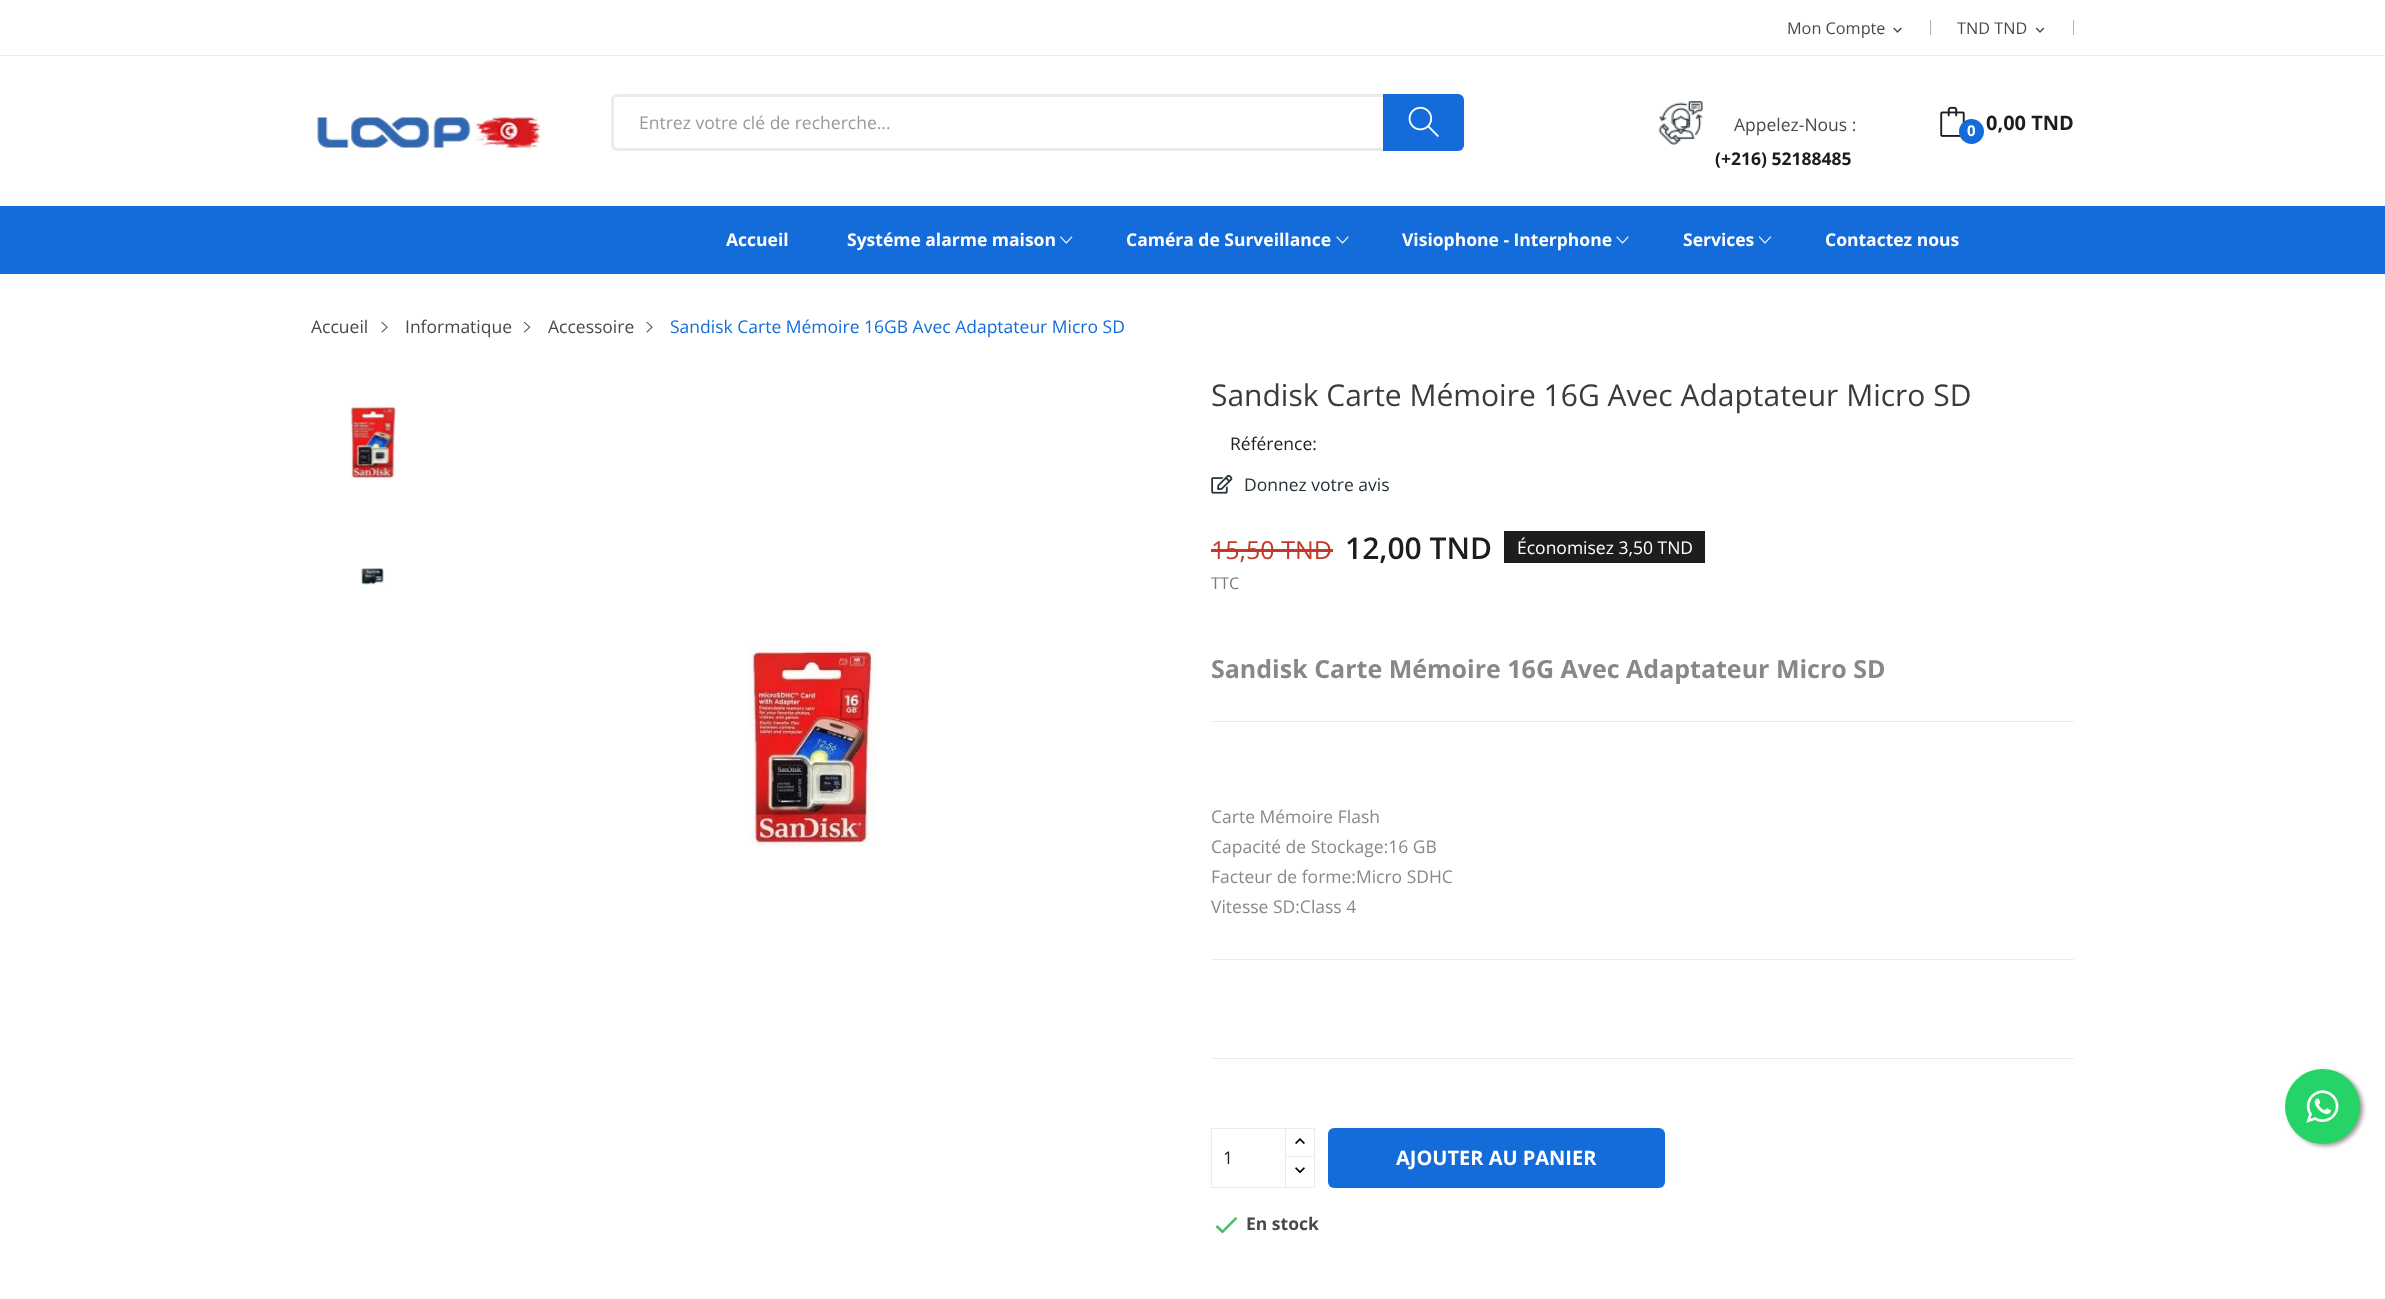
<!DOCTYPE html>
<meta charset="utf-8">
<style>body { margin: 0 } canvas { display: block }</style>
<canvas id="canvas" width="2385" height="1299"></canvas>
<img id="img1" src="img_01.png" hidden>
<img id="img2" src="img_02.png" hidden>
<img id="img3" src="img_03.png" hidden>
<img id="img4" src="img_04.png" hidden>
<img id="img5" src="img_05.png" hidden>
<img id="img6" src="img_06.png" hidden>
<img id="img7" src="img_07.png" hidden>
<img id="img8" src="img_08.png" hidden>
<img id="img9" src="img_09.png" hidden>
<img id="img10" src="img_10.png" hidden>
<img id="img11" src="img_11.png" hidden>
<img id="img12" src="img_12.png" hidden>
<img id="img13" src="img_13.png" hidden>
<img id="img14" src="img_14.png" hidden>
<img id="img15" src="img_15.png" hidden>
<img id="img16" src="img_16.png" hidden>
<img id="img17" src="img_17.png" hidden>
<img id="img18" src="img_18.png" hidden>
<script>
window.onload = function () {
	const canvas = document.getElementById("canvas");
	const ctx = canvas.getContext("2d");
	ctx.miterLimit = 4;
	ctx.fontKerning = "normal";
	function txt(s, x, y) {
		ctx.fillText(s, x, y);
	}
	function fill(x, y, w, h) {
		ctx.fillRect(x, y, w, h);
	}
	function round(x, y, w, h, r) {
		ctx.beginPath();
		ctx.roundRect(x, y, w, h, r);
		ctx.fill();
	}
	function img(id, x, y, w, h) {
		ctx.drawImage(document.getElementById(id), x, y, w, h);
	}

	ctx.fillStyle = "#FFFFFF";
	fill(0, 0, 2385, 1299);
	ctx.fillStyle = "#EBEBEB";
	fill(0, 55, 2385, 1);
	img("img1", 1893, 27, 9, 6);
	ctx.fillStyle = "#B2B2B2";
	fill(1930, 20, 1, 15);
	img("img2", 2035, 27, 10, 6);
	fill(2073, 20, 1, 15);
	img("img3", 317, 117, 223, 31);
	ctx.beginPath();
	ctx.roundRect(612.5, 95.5, 850, 54, 4.5);
	ctx.strokeStyle = "#EBEBEB";
	ctx.lineWidth = 3;
	ctx.stroke();
	ctx.fillStyle = "#146CDA";
	ctx.beginPath();
	ctx.roundRect(1383, 94, 81, 57, [0, 6, 6, 0]);
	ctx.fill();
	img("img4", 1408, 106, 31, 31);
	img("img5", 1658, 101, 45, 44);
	img("img6", 1940, 106, 25, 31);
	ctx.beginPath();
	ctx.arc(1971.5, 131.5, 12.5, 0, Math.PI * 2);
	ctx.fill();
	fill(0, 206, 2385, 68);
	img("img7", 1060, 236, 13, 8);
	img("img8", 1336, 236, 13, 8);
	img("img8", 1616, 236, 13, 8);
	img("img9", 1758, 236, 14, 8);
	img("img10", 381, 321, 7, 12);
	img("img11", 523, 321, 8, 12);
	img("img10", 646, 321, 7, 12);
	img("img12", 349, 404, 48, 76);
	img("img13", 361, 568, 24, 17);
	img("img14", 746, 645, 130, 201);
	img("img15", 1211, 474, 22, 20);
	ctx.fillStyle = "#C0392B";
	fill(1211, 549, 122, 3);
	ctx.fillStyle = "#1D1D1D";
	fill(1504, 531, 201, 32);
	ctx.fillStyle = "#EBEBEB";
	fill(1211, 1058, 863, 1);
	fill(1211, 721, 863, 1);
	fill(1211, 959, 863, 1);
	ctx.lineWidth = 1;
	ctx.strokeRect(1285.5, 1128.5, 29, 30);
	ctx.fillStyle = "#FFFFFF";
	fill(1286, 1158, 28, 1);
	ctx.strokeRect(1285.5, 1156.5, 29, 31);
	ctx.strokeRect(1211.5, 1128.5, 74, 59);
	img("img16", 1295, 1138, 10, 6);
	img("img17", 1295, 1167, 10, 7);
	ctx.fillStyle = "#146CDA";
	round(1328, 1128, 337, 60, 6);
	ctx.fillStyle = "#4CBB6C";
	ctx.beginPath();
	ctx.moveTo(1222.5, 1230);
	ctx.lineTo(1235.5, 1217);
	ctx.lineTo(1237.5, 1218.5);
	ctx.lineTo(1222.5, 1233.5);
	ctx.lineTo(1215.5, 1227);
	ctx.lineTo(1217.5, 1225);
	ctx.closePath();
	ctx.fill();
	ctx.fillStyle = "#999999";
	ctx.filter = "blur(2px)";
	ctx.beginPath();
	ctx.roundRect(2288, 1071, 75, 75, 37.5);
	ctx.fill();
	ctx.filter = "none";
	ctx.fillStyle = "#25D366";
	ctx.beginPath();
	ctx.arc(2322.5, 1106.5, 37.5, 0, Math.PI * 2);
	ctx.fill();
	img("img18", 2306, 1090, 33, 33);
	ctx.font = "16.25px Open Sans";
	ctx.fillStyle = "#47494A";
	txt("Mon Compte", 1787, 34);
	txt("TND TND", 1957, 34);
	ctx.font = "17.5px Open Sans";
	ctx.fillStyle = "#999999";
	txt("Entrez votre clé de recherche...", 639, 129);
	ctx.fillStyle = "#47494A";
	txt("Appelez-Nous :", 1734, 131);
	ctx.font = "bold 17.5px Open Sans";
	ctx.fillStyle = "#1D1D1D";
	txt("(+216) 52188485", 1715, 165);
	ctx.font = "bold 15px Open Sans";
	ctx.fillStyle = "#FFFFFF";
	txt("0", 1967, 136);
	ctx.font = "bold 20px Open Sans";
	ctx.fillStyle = "#1D1D1D";
	txt("0,00 TND", 1986, 130);
	ctx.font = "bold 17.5px Open Sans";
	ctx.fillStyle = "#FFFFFF";
	txt("Accueil", 726, 246);
	txt("Systéme alarme maison", 847, 246);
	txt("Caméra de Surveillance", 1126, 246);
	txt("Visiophone - Interphone", 1402, 246);
	txt("Services", 1683, 246);
	txt("Contactez nous", 1825, 246);
	ctx.font = "17.5px Open Sans";
	ctx.fillStyle = "#47494A";
	txt("Accueil", 311, 333);
	txt("Informatique", 405, 333);
	txt("Accessoire", 548, 333);
	ctx.fillStyle = "#146CDA";
	txt("Sandisk Carte Mémoire 16GB Avec Adaptateur Micro SD", 670, 333);
	ctx.font = "30px Open Sans";
	ctx.fillStyle = "#3B3B3B";
	txt("Sandisk Carte Mémoire 16G Avec Adaptateur Micro SD", 1211, 406);
	ctx.font = "17.5px Open Sans";
	ctx.fillStyle = "#1D1D1D";
	txt("Référence:", 1230, 450);
	ctx.fillStyle = "#253237";
	txt("Donnez votre avis", 1244, 491);
	ctx.font = "25px Open Sans";
	ctx.fillStyle = "#C0392B";
	txt("15,50 TND", 1211, 559);
	ctx.font = "600 30px Open Sans";
	ctx.fillStyle = "#1D1D1D";
	txt("12,00 TND", 1345, 559);
	ctx.font = "17.5px Open Sans";
	ctx.fillStyle = "#FFFFFF";
	txt("Économisez 3,50 TND", 1517, 554);
	ctx.font = "16.25px Open Sans";
	ctx.fillStyle = "#7A7A7A";
	txt("TTC", 1211, 589);
	ctx.font = "bold 25px Open Sans";
	ctx.fillStyle = "#888888";
	txt("Sandisk Carte Mémoire 16G Avec Adaptateur Micro SD", 1211, 678);
	ctx.font = "17.5px Open Sans";
	txt("Carte Mémoire Flash", 1211, 823);
	txt("Capacité de Stockage:16 GB", 1211, 853);
	txt("Facteur de forme:Micro SDHC", 1211, 883);
	txt("Vitesse SD:Class 4", 1211, 913);
	ctx.fillStyle = "#232323";
	txt("1", 1223, 1164);
	ctx.font = "bold 20px Open Sans";
	ctx.fillStyle = "#FFFFFF";
	txt("AJOUTER AU PANIER", 1396, 1165);
	ctx.font = "bold 17.5px Open Sans";
	ctx.fillStyle = "#47494A";
	txt("En stock", 1246, 1230);
};
</script>
